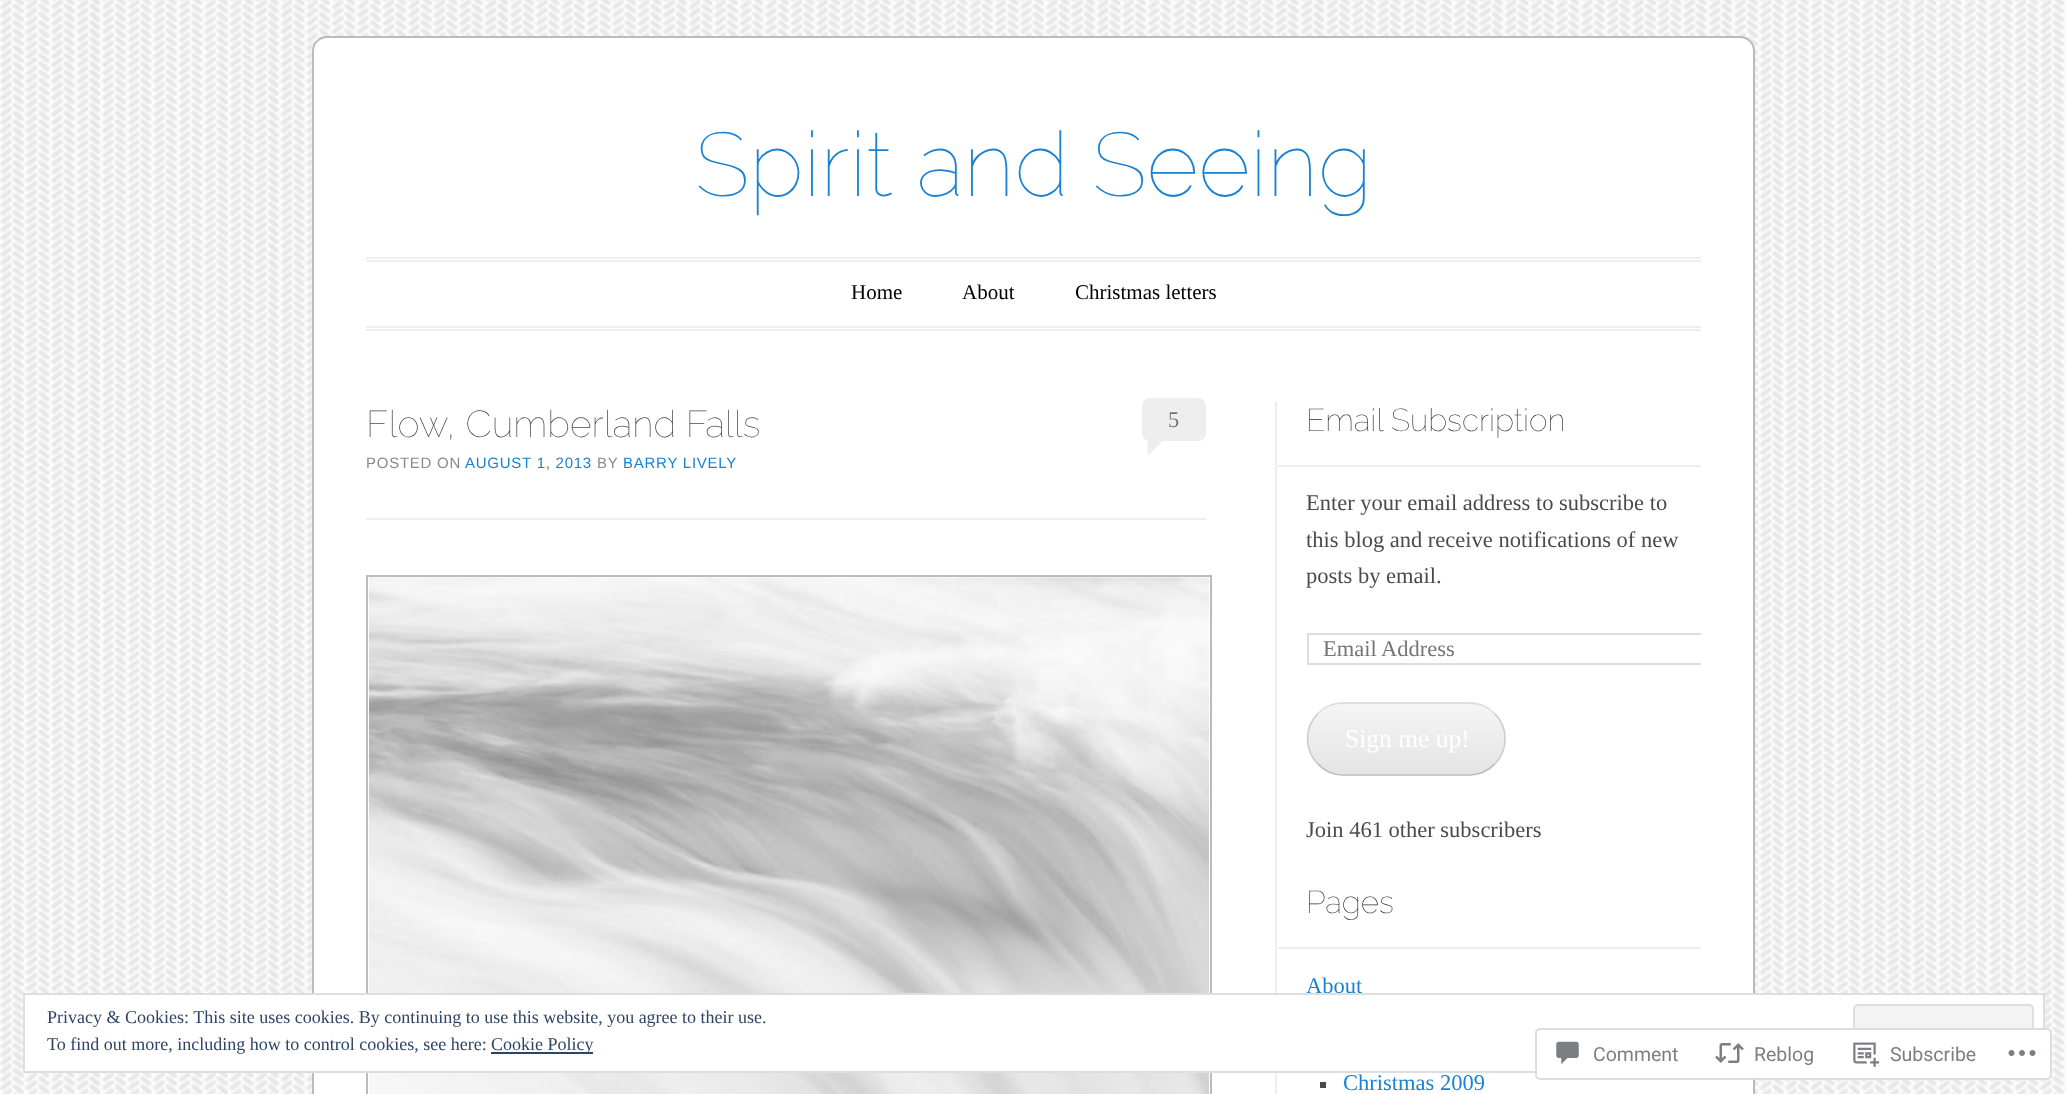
<!DOCTYPE html>
<meta charset="utf-8">
<style>body { margin: 0 } canvas { display: block }</style>
<canvas id="canvas" width="2066" height="1094"></canvas>
<img id="img1" src="img_01.png" hidden>
<img id="img2" src="img_02.png" hidden>
<img id="img3" src="img_03.png" hidden>
<img id="img4" src="img_04.png" hidden>
<img id="img5" src="img_05.png" hidden>
<img id="img6" src="img_06.png" hidden>
<script>
window.onload = function () {
	const canvas = document.getElementById("canvas");
	const ctx = canvas.getContext("2d");
	ctx.miterLimit = 4;
	ctx.fontKerning = "normal";
	function txt(s, x, y) {
		ctx.fillText(s, x, y);
	}
	function fill(x, y, w, h) {
		ctx.fillRect(x, y, w, h);
	}
	function round(x, y, w, h, r) {
		ctx.beginPath();
		ctx.roundRect(x, y, w, h, r);
		ctx.fill();
	}
	function img(id, x, y, w, h) {
		ctx.drawImage(document.getElementById(id), x, y, w, h);
	}
	let gradient;

	ctx.fillStyle = "#FFFFFF";
	fill(0, 0, 2066, 1094);
	img("img1", 0, 0, 2066, 1094);
	ctx.beginPath();
	ctx.roundRect(313, 37, 1441, 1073, 14);
	ctx.fill();
	ctx.strokeStyle = "#BBBBBB";
	ctx.lineWidth = 2;
	ctx.stroke();
	ctx.fillStyle = "#EEEEEE";
	fill(366, 257, 1335, 2);
	fill(366, 260, 1335, 2);
	fill(366, 326, 1335, 2);
	fill(366, 329, 1335, 2);
	round(1142, 398, 64, 43, 8);
	ctx.beginPath();
	ctx.moveTo(1147.5, 456);
	ctx.lineTo(1147.5, 441);
	ctx.lineTo(1162.5, 441);
	ctx.closePath();
	ctx.fill();
	fill(366, 518, 840, 2);
	ctx.strokeRect(367, 576, 844, 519);
	img("img2", 369, 577, 840, 517);
	fill(1275, 402, 2, 692);
	fill(1278, 465, 423, 2);
	ctx.save();
	ctx.beginPath();
	ctx.rect(1277, 402, 424, 446);
	ctx.clip();
	ctx.strokeStyle = "#DDDDDD";
	ctx.strokeRect(1308, 634, 406, 30);
	ctx.restore();
	ctx.save();
	ctx.beginPath();
	ctx.roundRect(1307, 702, 199, 74, 37);
	ctx.clip();
	gradient = ctx.createLinearGradient(1406, 633, 1406, 704);
	gradient.addColorStop(0, "#F5F5F5");
	gradient.addColorStop(1, "#E4E4E4");
	ctx.fillStyle = gradient;
	fill(1332, 702, 149, 2);
	gradient = ctx.createLinearGradient(1406, 704, 1406, 774);
	gradient.addColorStop(0, "#F5F5F5");
	gradient.addColorStop(1, "#E4E4E4");
	ctx.fillStyle = gradient;
	fill(1307, 704, 199, 70);
	gradient = ctx.createLinearGradient(1406, 774, 1406, 845);
	gradient.addColorStop(0, "#F5F5F5");
	gradient.addColorStop(1, "#E4E4E4");
	ctx.fillStyle = gradient;
	fill(1332, 774, 149, 2);
	ctx.restore();
	ctx.beginPath();
	ctx.moveTo(1318, 713.5);
	ctx.bezierCurveTo(1324.5, 706.5, 1333.5, 703, 1343, 703);
	ctx.lineTo(1469, 703);
	ctx.bezierCurveTo(1479, 703, 1488, 706.5, 1494.5, 713.5);
	ctx.strokeStyle = "#DDDDDD";
	ctx.lineWidth = 1.5;
	ctx.stroke();
	ctx.beginPath();
	ctx.moveTo(1494.5, 713.5);
	ctx.bezierCurveTo(1508.5, 727, 1508.5, 750.5, 1494.5, 764);
	ctx.strokeStyle = "#CCCCCC";
	ctx.stroke();
	ctx.beginPath();
	ctx.moveTo(1494.5, 764);
	ctx.bezierCurveTo(1488, 771, 1479, 775, 1469, 775);
	ctx.lineTo(1343, 775);
	ctx.bezierCurveTo(1333.5, 775, 1324.5, 771, 1318, 764);
	ctx.strokeStyle = "#BBBBBB";
	ctx.stroke();
	ctx.beginPath();
	ctx.moveTo(1318, 764);
	ctx.bezierCurveTo(1304, 750.5, 1304, 727, 1318, 713.5);
	ctx.strokeStyle = "#CCCCCC";
	ctx.stroke();
	fill(1278, 947, 423, 2);
	ctx.fillStyle = "#4A4A4A";
	fill(1320, 1082, 6, 6);
	ctx.font = "100 90px Raleway";
	ctx.fillStyle = "#1982D1";
	txt("Spirit and Seeing", 695, 196);
	ctx.font = "21px Liberation Serif";
	ctx.fillStyle = "#000000";
	txt("Home", 851, 299);
	txt("About", 962, 299);
	txt("Christmas letters", 1075, 299);
	ctx.font = "100 37.5px Raleway";
	ctx.fillStyle = "#4A4A4A";
	txt("Flow, Cumberland Falls", 366, 437);
	ctx.font = "22.5px Liberation Serif";
	ctx.fillStyle = "#757575";
	txt("5", 1168, 427);
	ctx.letterSpacing = "0.75px";
	ctx.font = "15px Liberation Sans";
	ctx.fillStyle = "#8A8A8A";
	txt("POSTED ON", 366, 468);
	ctx.fillStyle = "#1982D1";
	txt("AUGUST 1, 2013", 465, 468);
	ctx.fillStyle = "#8A8A8A";
	txt("BY", 597, 468);
	ctx.fillStyle = "#1982D1";
	txt("BARRY LIVELY", 623, 468);
	ctx.letterSpacing = "0px";
	ctx.font = "100 31.5px Raleway";
	ctx.fillStyle = "#2A2A2A";
	txt("Email Subscription", 1306, 431);
	ctx.font = "22.5px Liberation Serif";
	ctx.fillStyle = "#4A4A4A";
	txt("Enter your email address to subscribe to", 1306, 510);
	txt("this blog and receive notifications of new", 1306, 547);
	txt("posts by email.", 1306, 583);
	ctx.fillStyle = "#757575";
	txt("Email Address", 1323, 656);
	ctx.font = "25.5px Liberation Serif";
	ctx.fillStyle = "#FFFFFF";
	txt("Sign me up!", 1345, 747);
	ctx.font = "22.5px Liberation Serif";
	ctx.fillStyle = "#4A4A4A";
	txt("Join 461 other subscribers", 1306, 837);
	ctx.font = "100 31.5px Raleway";
	ctx.fillStyle = "#2A2A2A";
	txt("Pages", 1306, 913);
	ctx.font = "22.5px Liberation Serif";
	ctx.fillStyle = "#1982D1";
	txt("About", 1306, 993);
	txt("Christmas 2009", 1343, 1090);
	ctx.fillStyle = "#FFFFFF";
	ctx.beginPath();
	ctx.rect(24, 994, 2020, 78);
	ctx.fill();
	ctx.strokeStyle = "#DEDEDE";
	ctx.lineWidth = 2;
	ctx.stroke();
	ctx.font = "18px Liberation Serif";
	ctx.fillStyle = "#2E4467";
	txt("Privacy & Cookies: This site uses cookies. By continuing to use this website, you agree to their use.", 47, 1023);
	ctx.fillStyle = "#F3F3F3";
	ctx.beginPath();
	ctx.roundRect(1854, 1005, 179, 56, 4);
	ctx.fill();
	ctx.stroke();
	ctx.fillStyle = "#2E4467";
	txt("To find out more, including how to control cookies, see here:", 47, 1050);
	fill(491, 1052, 102, 2);
	txt("Cookie Policy", 491, 1050);
	ctx.fillStyle = "rgba(255, 255, 255, 0.98)";
	round(1535, 1028, 517, 52, 5);
	ctx.beginPath();
	ctx.roundRect(1536, 1029, 515, 50, 4);
	ctx.strokeStyle = "rgba(220, 220, 222, 0.98)";
	ctx.stroke();
	img("img3", 1556, 1041, 23, 24);
	ctx.font = "19.5px Roboto";
	ctx.fillStyle = "#7B7F85";
	txt("Comment", 1593, 1061);
	img("img4", 1715, 1043, 29, 20);
	txt("Reblog", 1754, 1061);
	img("img5", 1853, 1042, 27, 25);
	txt("Subscribe", 1890, 1061);
	img("img6", 2008, 1050, 28, 6);
};
</script>
